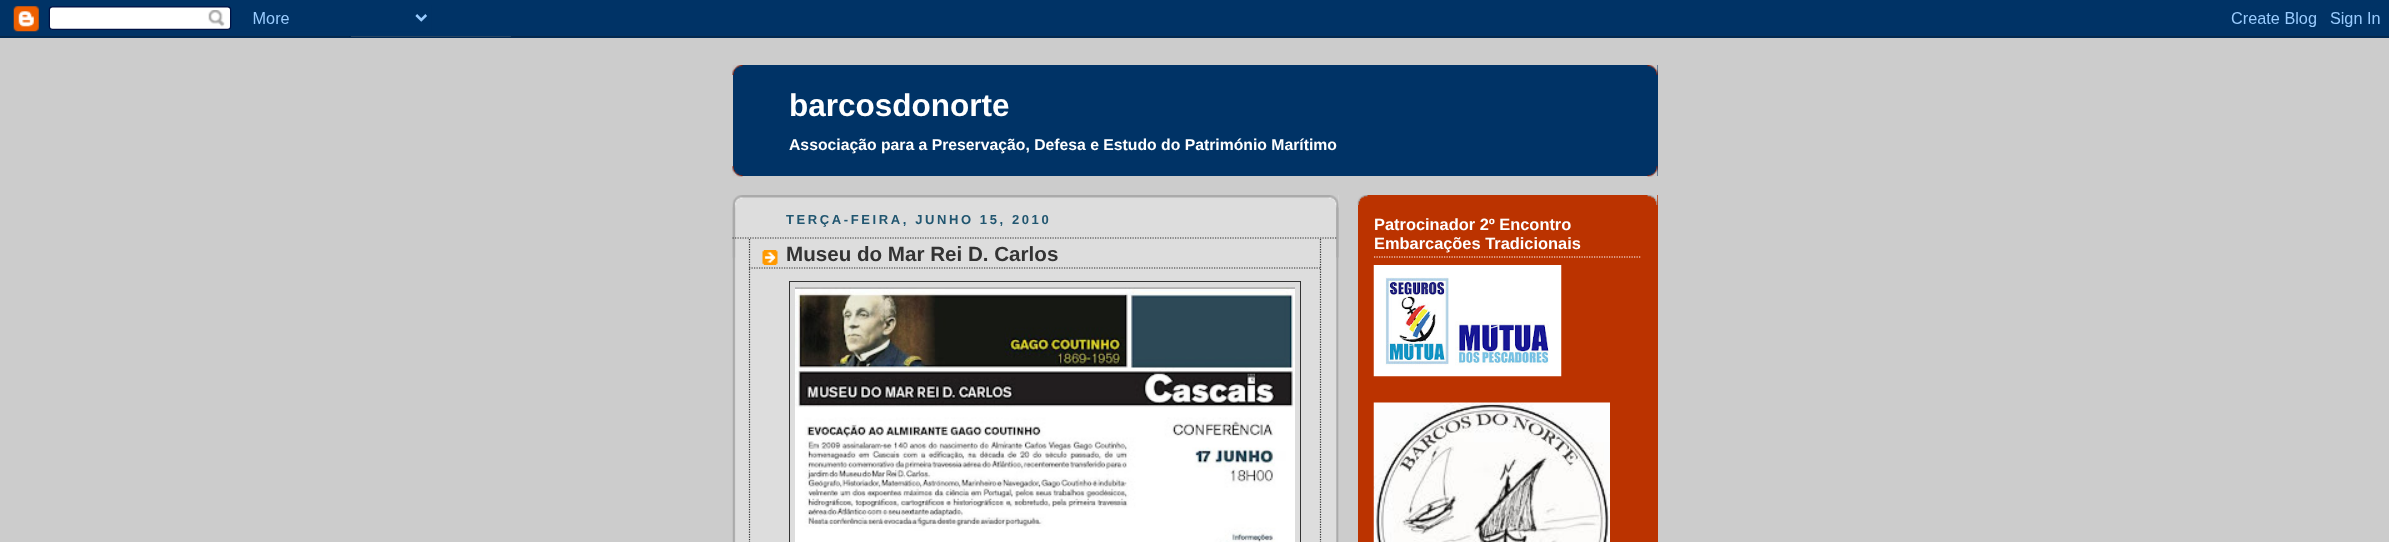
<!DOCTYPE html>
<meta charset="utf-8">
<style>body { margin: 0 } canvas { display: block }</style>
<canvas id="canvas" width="2389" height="542"></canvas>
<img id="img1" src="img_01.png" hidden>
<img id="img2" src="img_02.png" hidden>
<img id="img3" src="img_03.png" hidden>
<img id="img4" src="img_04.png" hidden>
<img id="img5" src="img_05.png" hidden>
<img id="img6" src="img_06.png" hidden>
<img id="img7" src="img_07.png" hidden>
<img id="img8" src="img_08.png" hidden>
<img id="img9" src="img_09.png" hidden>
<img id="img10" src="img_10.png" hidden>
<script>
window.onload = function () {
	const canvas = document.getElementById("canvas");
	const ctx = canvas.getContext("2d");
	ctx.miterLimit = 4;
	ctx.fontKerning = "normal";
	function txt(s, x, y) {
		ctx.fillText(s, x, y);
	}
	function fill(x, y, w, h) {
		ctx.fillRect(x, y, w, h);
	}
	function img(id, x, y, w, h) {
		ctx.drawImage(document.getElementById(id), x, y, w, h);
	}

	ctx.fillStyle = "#CCCCCC";
	fill(0, 0, 2389, 542);
	img("img1", 0, 0, 2389, 38);
	ctx.fillStyle = "#003366";
	fill(733, 65, 925, 111);
	img("img2", 732, 65, 926, 10);
	img("img3", 732, 166, 926, 11);
	ctx.fillStyle = "#DDDDDD";
	fill(734, 195, 605, 347);
	img("img4", 732, 195, 607, 63);
	img("img5", 732, 207, 607, 335);
	ctx.beginPath();
	ctx.moveTo(732.5, 238);
	ctx.lineTo(1337.5, 238);
	ctx.strokeStyle = "#333333";
	ctx.lineWidth = 1.2;
	ctx.setLineDash([1.25, 1.25]);
	ctx.stroke();
	img("img6", 762, 250, 16, 15);
	ctx.beginPath();
	ctx.moveTo(1320.5, 239);
	ctx.lineTo(1320.5, 269);
	ctx.stroke();
	ctx.beginPath();
	ctx.moveTo(749, 268);
	ctx.lineTo(1321, 268);
	ctx.stroke();
	ctx.beginPath();
	ctx.moveTo(749.5, 239);
	ctx.lineTo(749.5, 269);
	ctx.stroke();
	ctx.beginPath();
	ctx.moveTo(1320.5, 269);
	ctx.lineTo(1320.5, 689);
	ctx.stroke();
	ctx.beginPath();
	ctx.moveTo(749.5, 269);
	ctx.lineTo(749.5, 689);
	ctx.stroke();
	ctx.lineWidth = 1;
	ctx.setLineDash([]);
	ctx.strokeRect(789.5, 281.5, 511, 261);
	img("img7", 795, 287, 500, 255);
	ctx.fillStyle = "#BB3300";
	fill(1358, 195, 300, 347);
	img("img8", 1357, 195, 301, 10);
	ctx.beginPath();
	ctx.moveTo(1374, 257);
	ctx.lineTo(1641, 257);
	ctx.strokeStyle = "#FFFFFF";
	ctx.lineWidth = 1.2;
	ctx.setLineDash([1.25, 1.25]);
	ctx.stroke();
	img("img9", 1373, 265, 189, 112);
	img("img10", 1373, 402, 237, 140);
	ctx.font = "bold 31.5px Liberation Sans";
	ctx.fillStyle = "#FFFFFF";
	txt("barcosdonorte", 789, 116);
	ctx.font = "bold 15.75px Liberation Sans";
	txt("Associação para a Preservação, Defesa e Estudo do Património Marítimo", 789, 150);
	ctx.letterSpacing = "2.6px";
	ctx.font = "bold 13px Liberation Sans";
	ctx.fillStyle = "#215670";
	txt("TERÇA-FEIRA, JUNHO 15, 2010", 786, 224);
	ctx.letterSpacing = "0px";
	ctx.font = "bold 20.6px Liberation Sans";
	ctx.fillStyle = "#333333";
	txt("Museu do Mar Rei D. Carlos", 786, 261);
	ctx.font = "bold 16.4px Liberation Sans";
	ctx.fillStyle = "#FFFFFF";
	txt("Patrocinador 2º Encontro", 1374, 230);
	txt("Embarcações Tradicionais", 1374, 249);
};
</script>
